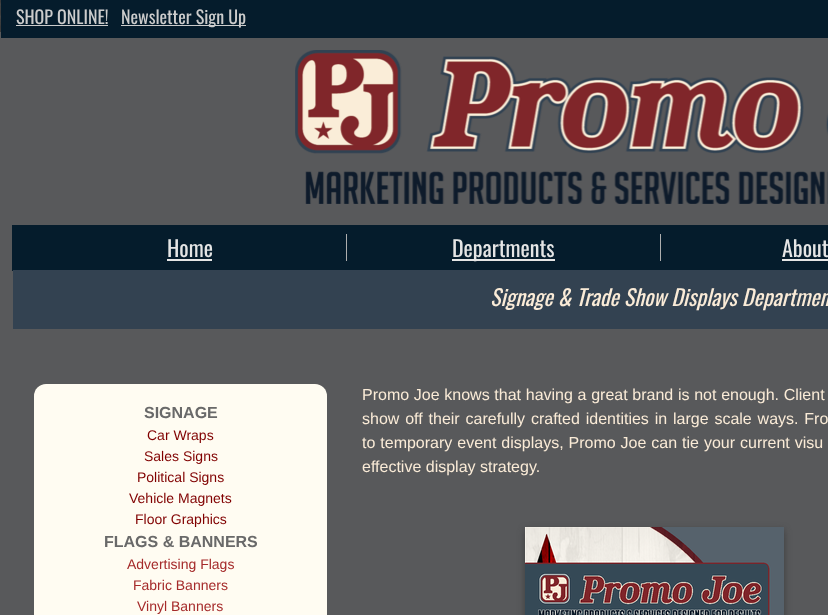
<!DOCTYPE html>
<meta charset="utf-8">
<style>body { margin: 0 } canvas { display: block }</style>
<canvas id="canvas" width="828" height="615"></canvas>
<img id="img1" src="img_01.png" hidden>
<img id="img2" src="img_02.png" hidden>
<img id="img3" src="img_03.png" hidden>
<script>
window.onload = function () {
	const canvas = document.getElementById("canvas");
	const ctx = canvas.getContext("2d");
	ctx.miterLimit = 4;
	ctx.fontKerning = "normal";
	function txt(s, x, y) {
		ctx.fillText(s, x, y);
	}
	function fill(x, y, w, h) {
		ctx.fillRect(x, y, w, h);
	}
	function img(id, x, y, w, h) {
		ctx.drawImage(document.getElementById(id), x, y, w, h);
	}

	ctx.fillStyle = "#FFFFFF";
	fill(0, 0, 828, 615);
	img("img1", 0, 0, 1, 32);
	ctx.fillStyle = "#58595B";
	fill(0, 32, 828, 583);
	ctx.fillStyle = "#051C2C";
	fill(1, 0, 827, 38);
	ctx.fillStyle = "#CCCCCC";
	fill(16, 25, 92, 1);
	fill(121, 25, 125, 1);
	img("img2", 295, 50, 533, 154);
	ctx.fillStyle = "#051C2C";
	fill(12, 225, 816, 46);
	ctx.fillStyle = "#AEAEAE";
	fill(346, 234, 1, 27);
	ctx.fillStyle = "#E5E5E5";
	fill(167, 259, 45, 2);
	ctx.fillStyle = "#AEAEAE";
	fill(660, 234, 1, 27);
	ctx.fillStyle = "#E5E5E5";
	fill(452, 259, 103, 2);
	fill(782, 259, 46, 2);
	ctx.fillStyle = "#334251";
	fill(13, 270, 815, 59);
	ctx.fillStyle = "#FFFCF2";
	ctx.beginPath();
	ctx.roundRect(34, 384, 293, 231, [12, 12, 0, 0]);
	ctx.fill();
	ctx.fillStyle = "rgba(50, 50, 50, 0.75)";
	ctx.filter = "blur(3.5px)";
	ctx.beginPath();
	ctx.rect(525, 530, 259, 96);
	ctx.fill();
	ctx.filter = "none";
	img("img3", 525, 527, 259, 88);
	ctx.font = "18px Oswald";
	ctx.fillStyle = "#CCCCCC";
	txt("SHOP ONLINE!", 16, 24);
	txt("Newsletter Sign Up", 121, 24);
	ctx.font = "22px Oswald";
	ctx.fillStyle = "#E5E5E5";
	txt("Home", 167, 257);
	txt("Departments", 452, 257);
	txt("About", 782, 257);
	ctx.font = "italic 22px Oswald";
	ctx.fillStyle = "#FAEBD7";
	txt("Signage & Trade Show Displays Departmen", 490, 306);
	ctx.font = "bold 16px Liberation Sans";
	ctx.fillStyle = "#696969";
	txt("SIGNAGE", 144, 418);
	ctx.font = "14px Liberation Sans";
	ctx.fillStyle = "#800000";
	txt("Car Wraps", 147, 440);
	txt("Sales Signs", 144, 461);
	txt("Political Signs", 137, 482);
	txt("Vehicle Magnets", 129, 503);
	txt("Floor Graphics", 135, 524);
	ctx.font = "bold 16px Liberation Sans";
	ctx.fillStyle = "#696969";
	txt("FLAGS & BANNERS", 104, 547);
	ctx.font = "14px Liberation Sans";
	ctx.fillStyle = "#A52A2A";
	txt("Advertising Flags", 127, 569);
	txt("Fabric Banners", 133, 590);
	txt("Vinyl Banners", 137, 611);
	ctx.wordSpacing = "0.25px";
	ctx.font = "16px Liberation Sans";
	ctx.fillStyle = "#FAEBD7";
	txt("Promo Joe knows that having a great brand is not enough. Client", 362, 400);
	ctx.wordSpacing = "1.4px";
	txt("show off their carefully crafted identities in large scale ways. Fro", 362, 424);
	ctx.wordSpacing = "0.5px";
	txt("to temporary event displays, Promo Joe can tie your current visu", 362, 448);
	ctx.wordSpacing = "0px";
	txt("effective display strategy.", 362, 472);
};
</script>
